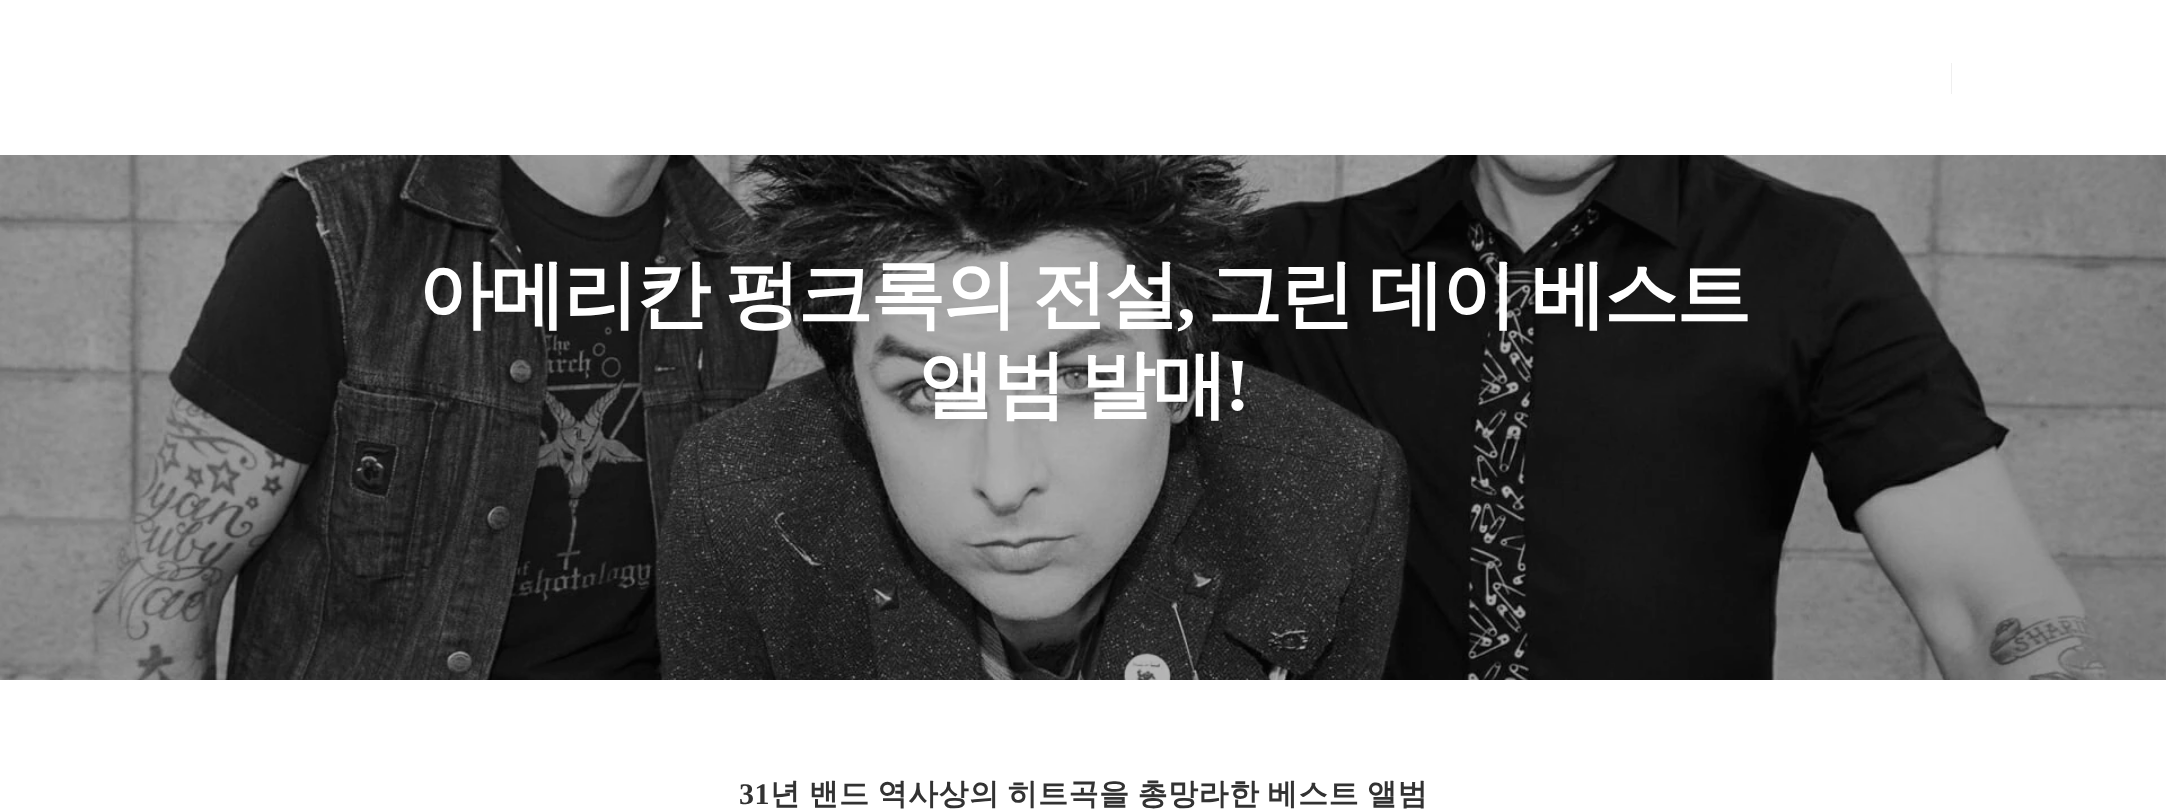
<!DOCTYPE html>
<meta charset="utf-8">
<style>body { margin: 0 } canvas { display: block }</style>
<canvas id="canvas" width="2166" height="810"></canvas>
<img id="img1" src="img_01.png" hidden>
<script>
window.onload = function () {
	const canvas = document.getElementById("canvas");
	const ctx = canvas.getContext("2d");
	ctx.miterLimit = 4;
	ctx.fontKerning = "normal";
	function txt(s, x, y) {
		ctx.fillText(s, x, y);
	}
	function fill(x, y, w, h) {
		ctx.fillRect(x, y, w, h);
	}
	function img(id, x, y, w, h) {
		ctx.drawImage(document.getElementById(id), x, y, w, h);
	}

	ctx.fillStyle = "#FFFFFF";
	fill(0, 0, 2166, 810);
	ctx.fillStyle = "#EFEFEF";
	fill(1951, 63, 1, 31);
	img("img1", 0, 155, 2166, 525);
	ctx.letterSpacing = "-2.5px";
	ctx.wordSpacing = "-3px";
	ctx.font = "bold 75px WenQuanYi Zen Hei";
	ctx.fillStyle = "#FFFFFF";
	txt("아메리칸 펑크록의 전설", 418, 320);
	ctx.wordSpacing = "0px";
	ctx.font = "bold 75px Liberation Serif";
	txt(",", 1177, 320);
	ctx.wordSpacing = "-3px";
	ctx.font = "bold 75px WenQuanYi Zen Hei";
	txt("그린 데이 베스트", 1207, 320);
	ctx.wordSpacing = "-4px";
	txt("앨범 발매", 919, 410);
	ctx.wordSpacing = "0px";
	ctx.font = "bold 75px Liberation Serif";
	txt("!", 1225, 410);
	ctx.letterSpacing = "0.5px";
	ctx.font = "bold 30px Liberation Serif";
	ctx.fillStyle = "#323232";
	txt("31", 739, 804);
	ctx.wordSpacing = "-1.5px";
	ctx.font = "bold 30px WenQuanYi Zen Hei";
	txt("년 밴드 역사상의 히트곡을 총망라한 베스트 앨범", 770, 804);
};
</script>
